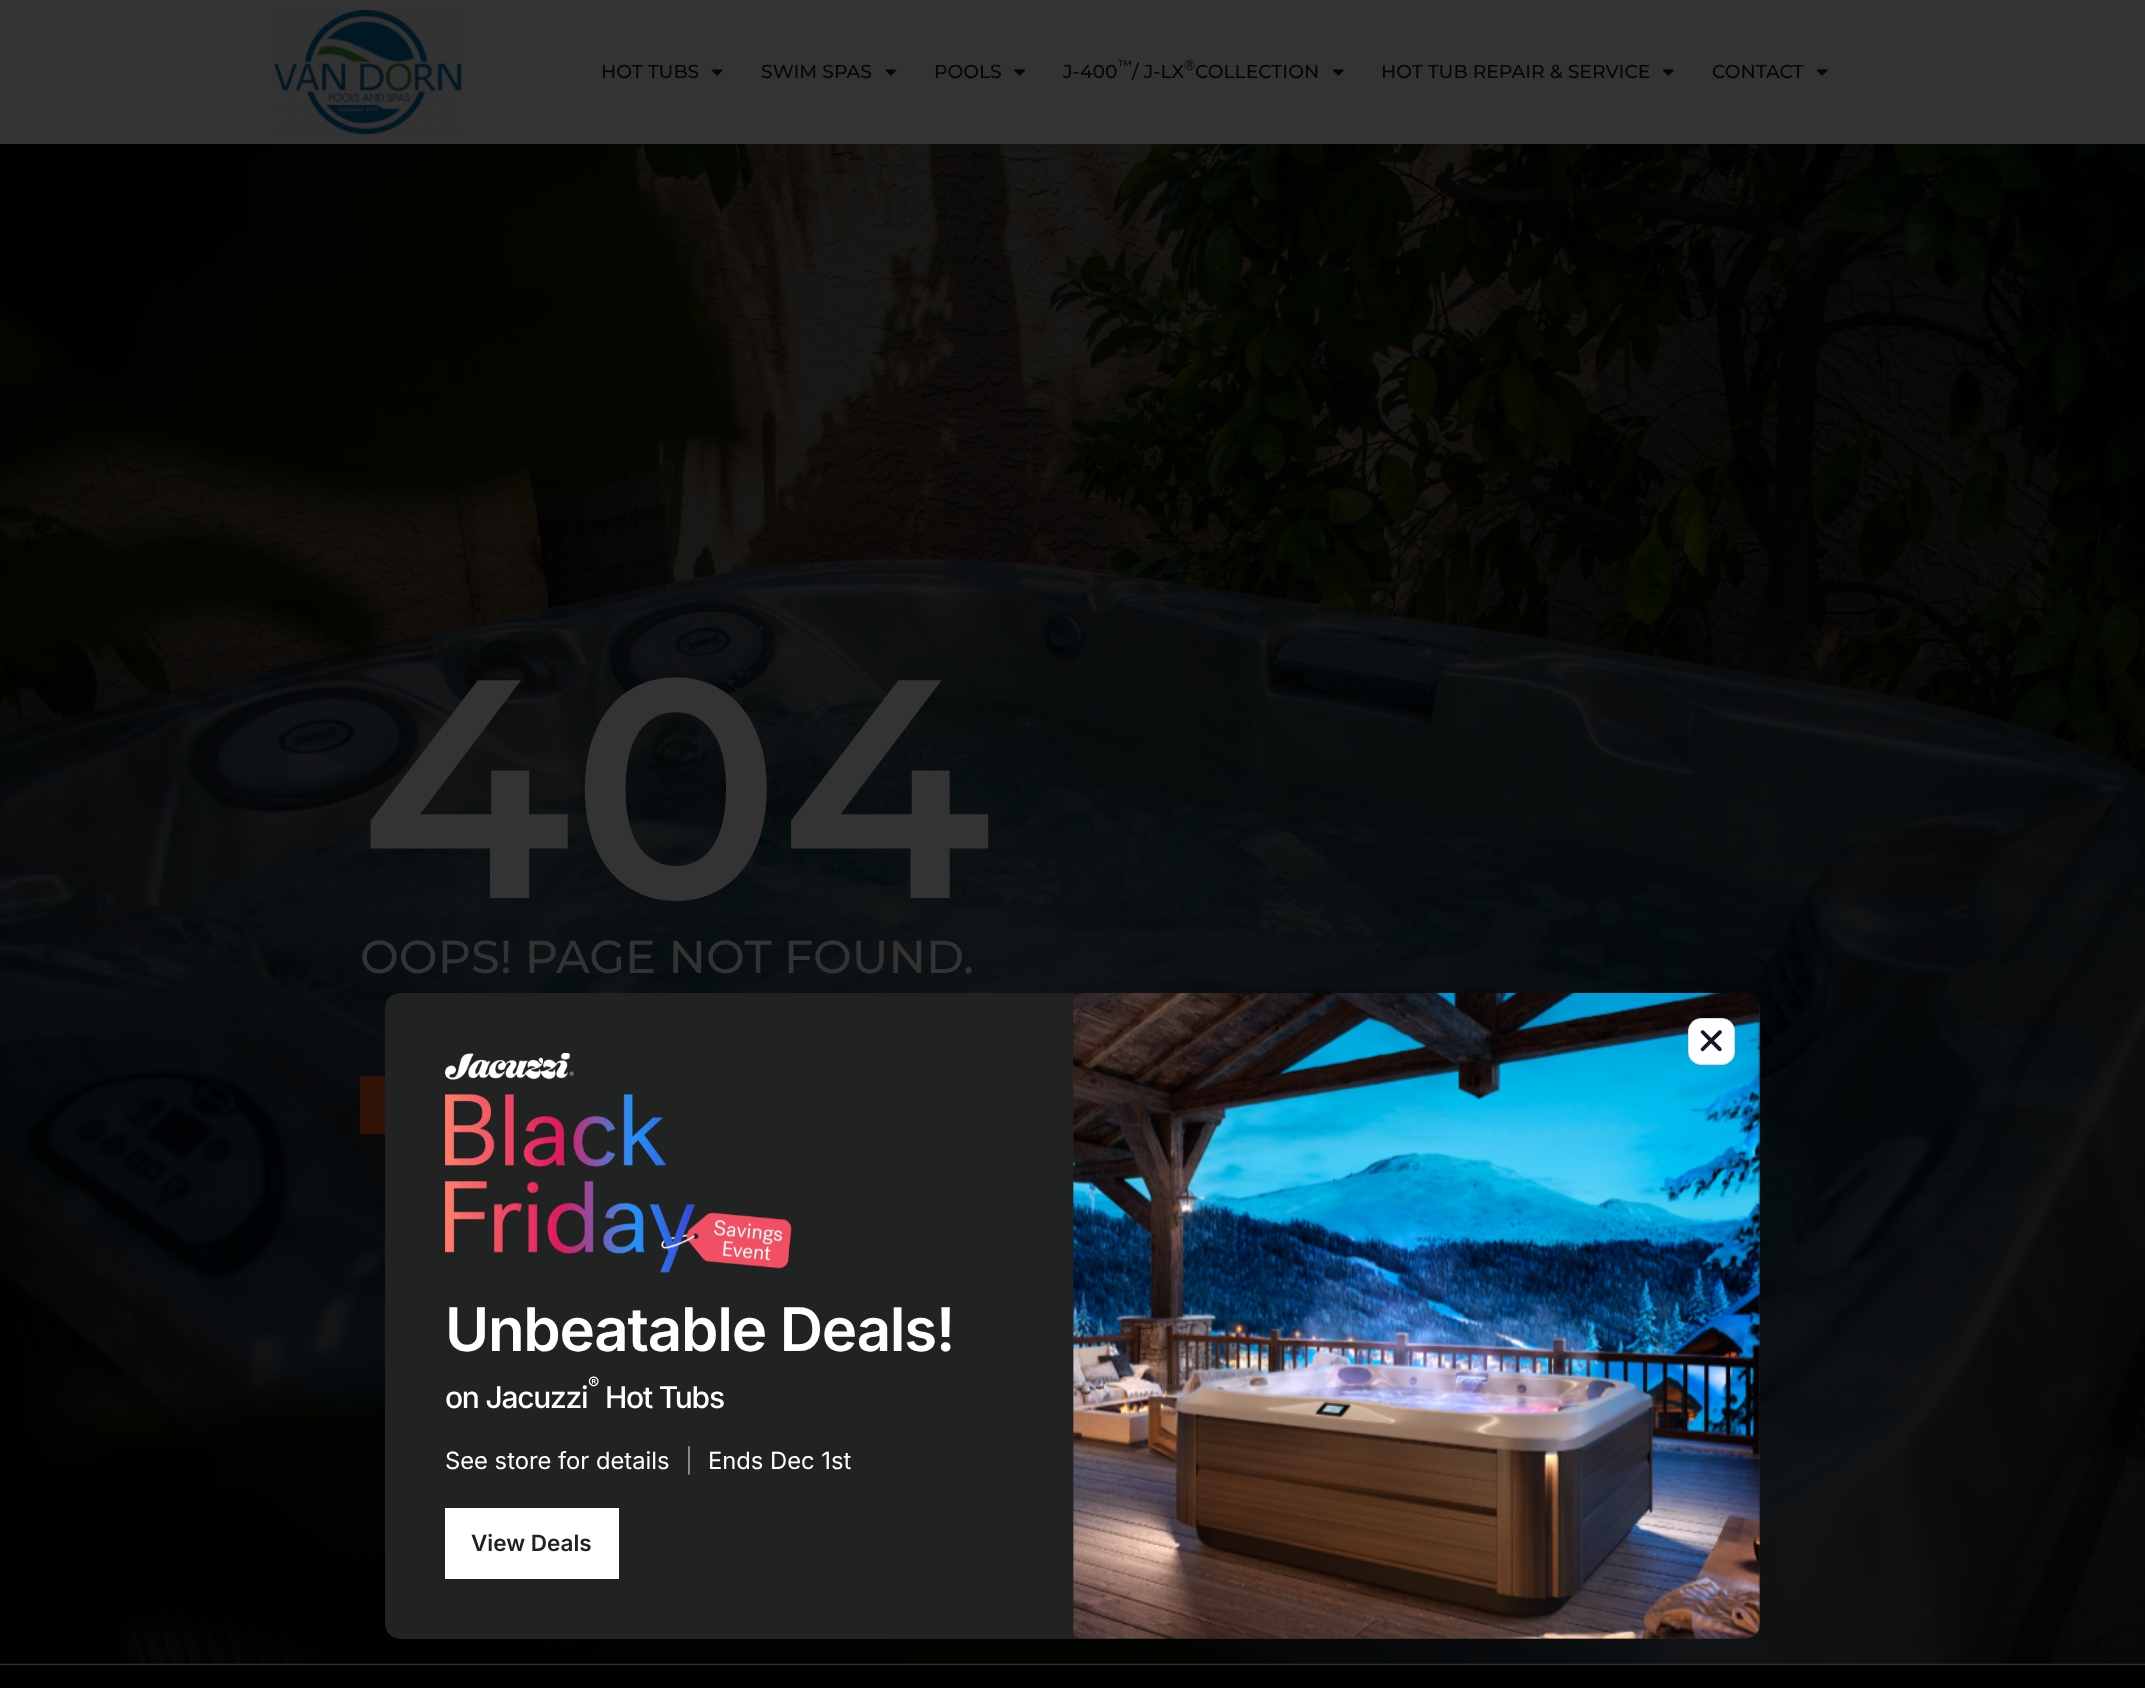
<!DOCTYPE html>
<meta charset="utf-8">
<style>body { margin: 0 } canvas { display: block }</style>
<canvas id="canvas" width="2145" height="1688"></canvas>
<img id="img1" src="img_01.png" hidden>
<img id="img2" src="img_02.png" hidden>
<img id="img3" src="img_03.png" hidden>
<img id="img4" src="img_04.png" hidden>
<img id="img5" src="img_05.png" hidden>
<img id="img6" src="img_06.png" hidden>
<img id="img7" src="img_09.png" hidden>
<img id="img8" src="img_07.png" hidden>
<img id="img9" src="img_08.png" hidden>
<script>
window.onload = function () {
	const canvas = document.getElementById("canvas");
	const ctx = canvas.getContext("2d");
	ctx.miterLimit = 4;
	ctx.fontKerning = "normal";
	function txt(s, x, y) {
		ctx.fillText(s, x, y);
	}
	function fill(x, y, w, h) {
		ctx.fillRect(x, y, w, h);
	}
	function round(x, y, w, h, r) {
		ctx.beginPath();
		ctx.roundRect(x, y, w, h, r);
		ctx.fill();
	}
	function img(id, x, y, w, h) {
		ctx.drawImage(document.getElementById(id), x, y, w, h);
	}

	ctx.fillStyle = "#333333";
	fill(0, 0, 2145, 1688);
	img("img1", 273, 10, 189, 124);
	img("img2", 711, 69, 12, 7);
	img("img3", 885, 69, 12, 7);
	img("img4", 1014, 69, 11, 7);
	img("img5", 1332, 69, 12, 7);
	img("img5", 1662, 69, 12, 7);
	img("img2", 1816, 69, 12, 7);
	img("img6", 0, 144, 2145, 1520);
	ctx.fillStyle = "#311308";
	fill(360, 1076, 25, 58);
	ctx.fillStyle = "#000000";
	fill(0, 1665, 2145, 23);
	ctx.fillStyle = "#212322";
	round(385, 993, 1375, 646, 15);
	img("img7", 1073, 993, 687, 646);
	ctx.fillStyle = "#FFFFFF";
	ctx.beginPath();
	ctx.roundRect(1688.5, 1018.5, 46, 46, 12.5);
	ctx.fill();
	ctx.strokeStyle = "#DADADA";
	ctx.stroke();
	img("img8", 1700, 1030, 22, 22);
	img("img9", 445, 1053, 347, 220);
	fill(445, 1508, 174, 71);
	ctx.font = "500 18.75px Montserrat";
	ctx.fillStyle = "#060607";
	txt("HOT TUBS", 601, 78);
	txt("SWIM SPAS", 761, 78);
	txt("POOLS", 934, 78);
	txt("J-400", 1063, 78);
	ctx.font = "500 14px Montserrat";
	txt("™", 1118, 70);
	ctx.font = "500 18.75px Montserrat";
	txt("/ J-LX", 1132, 78);
	ctx.font = "500 14px Montserrat";
	txt("®", 1184, 70);
	ctx.font = "500 18.75px Montserrat";
	txt("COLLECTION", 1195, 78);
	txt("HOT TUB REPAIR & SERVICE", 1381, 78);
	txt("CONTACT", 1712, 78);
	ctx.font = "600 311px Montserrat";
	ctx.fillStyle = "#333333";
	txt("404", 360, 898);
	ctx.font = "500 46.25px Montserrat";
	txt("OOPS! PAGE NOT FOUND.", 360, 973);
	ctx.letterSpacing = "-1.25px";
	ctx.font = "600 60px Inter";
	ctx.fillStyle = "#FFFFFF";
	txt("Unbeatable Deals!", 445, 1351);
	ctx.font = "500 17px Inter";
	txt("®", 588, 1389);
	ctx.font = "500 30px Inter";
	txt("on Jacuzzi", 445, 1408);
	txt("Hot Tubs", 605, 1408);
	ctx.letterSpacing = "0px";
	ctx.font = "23.75px Inter";
	txt("See store for details", 445, 1469);
	ctx.fillStyle = "#929292";
	txt("|", 685, 1469);
	ctx.fillStyle = "#FFFFFF";
	txt("Ends Dec 1st", 708, 1469);
	ctx.font = "600 22.5px Inter";
	ctx.fillStyle = "#212322";
	txt("View Deals", 471, 1551);
};
</script>
